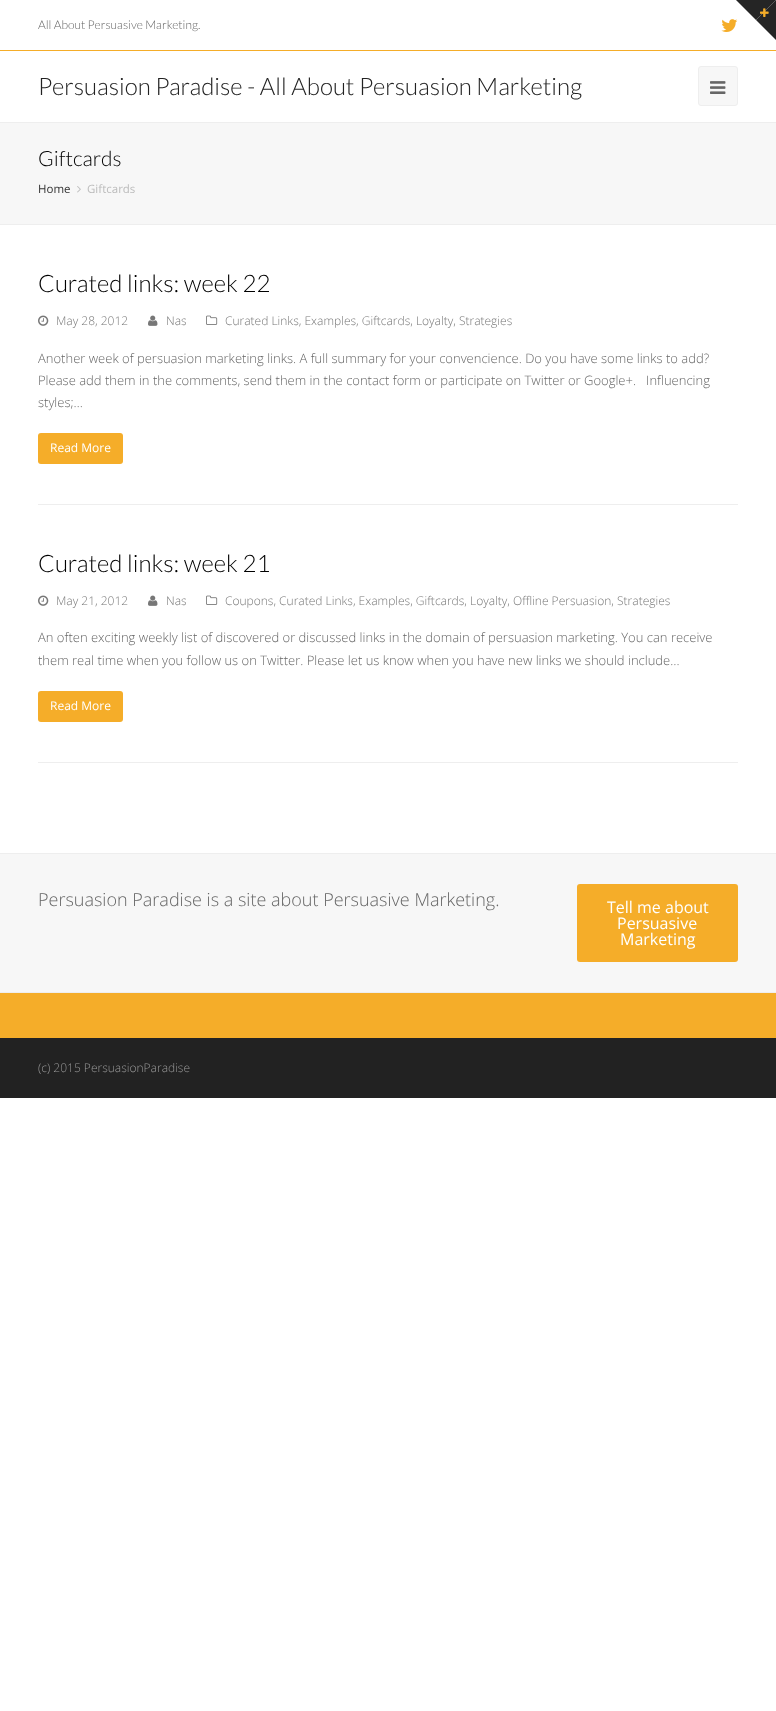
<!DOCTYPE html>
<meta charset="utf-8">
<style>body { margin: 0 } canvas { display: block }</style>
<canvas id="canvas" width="776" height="1711"></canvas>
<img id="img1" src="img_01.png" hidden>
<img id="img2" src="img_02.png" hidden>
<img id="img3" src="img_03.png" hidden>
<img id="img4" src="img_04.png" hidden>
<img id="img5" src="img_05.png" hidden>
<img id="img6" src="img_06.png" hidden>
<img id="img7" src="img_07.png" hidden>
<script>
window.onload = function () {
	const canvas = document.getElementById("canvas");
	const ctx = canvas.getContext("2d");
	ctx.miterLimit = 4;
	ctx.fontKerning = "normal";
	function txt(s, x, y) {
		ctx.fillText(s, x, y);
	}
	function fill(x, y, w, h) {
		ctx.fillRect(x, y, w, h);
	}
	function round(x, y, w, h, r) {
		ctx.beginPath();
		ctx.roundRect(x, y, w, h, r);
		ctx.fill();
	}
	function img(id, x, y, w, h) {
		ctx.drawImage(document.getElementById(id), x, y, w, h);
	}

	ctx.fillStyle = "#FFFFFF";
	fill(0, 0, 776, 1711);
	ctx.fillStyle = "#F5AD29";
	fill(0, 50, 776, 1);
	img("img1", 721, 19, 17, 13);
	ctx.fillStyle = "#252525";
	ctx.beginPath();
	ctx.moveTo(736, 0);
	ctx.lineTo(776, 0);
	ctx.lineTo(756, 20);
	ctx.closePath();
	ctx.fill();
	ctx.beginPath();
	ctx.moveTo(776, 0);
	ctx.lineTo(776, 40);
	ctx.lineTo(756, 20);
	ctx.closePath();
	ctx.fill();
	img("img2", 760, 8, 9, 9);
	ctx.fillStyle = "#F7F7F7";
	ctx.beginPath();
	ctx.roundRect(698.5, 66.5, 39, 39, 2.5);
	ctx.fill();
	ctx.strokeStyle = "#EEEEEE";
	ctx.stroke();
	img("img3", 710, 81, 16, 13);
	fill(0, 123, 776, 101);
	ctx.fillStyle = "#EEEEEE";
	fill(0, 122, 776, 1);
	fill(0, 224, 776, 1);
	img("img4", 77, 186, 4, 7);
	fill(38, 504, 700, 1);
	img("img5", 38, 315, 11, 11);
	img("img6", 148, 315, 10, 11);
	img("img7", 206, 315, 12, 10);
	ctx.fillStyle = "#F5AD29";
	round(38, 433, 85, 31, 3);
	ctx.fillStyle = "#EEEEEE";
	fill(38, 762, 700, 1);
	img("img5", 38, 595, 11, 11);
	img("img6", 148, 595, 10, 11);
	img("img7", 206, 595, 12, 10);
	ctx.fillStyle = "#F5AD29";
	round(38, 691, 85, 31, 3);
	ctx.fillStyle = "#F7F7F7";
	fill(0, 854, 776, 138);
	ctx.fillStyle = "#EEEEEE";
	fill(0, 853, 776, 1);
	fill(0, 992, 776, 1);
	ctx.fillStyle = "#F5AD29";
	round(577, 884, 161, 78, 3);
	fill(0, 993, 776, 45);
	ctx.fillStyle = "#222222";
	fill(0, 1038, 776, 60);
	ctx.font = "300 12px Lato";
	ctx.fillStyle = "#666666";
	txt("All About Persuasive Marketing.", 38, 29);
	ctx.font = "300 24px Lato";
	ctx.fillStyle = "#222222";
	txt("Persuasion Paradise - All About Persuasion Marketing", 38, 95);
	ctx.font = "300 21px Lato";
	ctx.fillStyle = "#000000";
	txt("Giftcards", 38, 166);
	ctx.font = "11.5px Open Sans";
	ctx.fillStyle = "#333333";
	txt("Home", 38, 193);
	ctx.fillStyle = "#BCBCBC";
	txt("Giftcards", 87, 193);
	ctx.font = "300 24px Lato";
	ctx.fillStyle = "#000000";
	txt("Curated links: week 22", 38, 292);
	ctx.font = "300 12px Open Sans";
	ctx.fillStyle = "#777777";
	txt("May 28, 2012", 56, 325);
	txt("Nas", 166, 325);
	txt("Curated Links, Examples, Giftcards, Loyalty, Strategies", 225, 325);
	ctx.font = "300 13px Open Sans";
	ctx.fillStyle = "#666666";
	txt("Another week of persuasion marketing links. A full summary for your convencience. Do you have some links to add?", 38, 363);
	txt("Please add them in the comments, send them in the contact form or participate on Twitter or Google+.   Influencing", 38, 385);
	txt("styles;…", 38, 407);
	ctx.font = "12px Open Sans";
	ctx.fillStyle = "#FFFFFF";
	txt("Read More", 50, 452);
	ctx.font = "300 24px Lato";
	ctx.fillStyle = "#000000";
	txt("Curated links: week 21", 38, 572);
	ctx.font = "300 12px Open Sans";
	ctx.fillStyle = "#777777";
	txt("May 21, 2012", 56, 605);
	txt("Nas", 166, 605);
	txt("Coupons, Curated Links, Examples, Giftcards, Loyalty, Offline Persuasion, Strategies", 225, 605);
	ctx.font = "300 13px Open Sans";
	ctx.fillStyle = "#666666";
	txt("An often exciting weekly list of discovered or discussed links in the domain of persuasion marketing. You can receive", 38, 642);
	txt("them real time when you follow us on Twitter. Please let us know when you have new links we should include…", 38, 665);
	ctx.font = "12px Open Sans";
	ctx.fillStyle = "#FFFFFF";
	txt("Read More", 50, 710);
	ctx.font = "300 18px Open Sans";
	ctx.fillStyle = "#666666";
	txt("Persuasion Paradise is a site about Persuasive Marketing.", 38, 906);
	ctx.font = "16px Open Sans";
	ctx.fillStyle = "#FFFFFF";
	txt("Tell me about", 607, 913);
	txt("Persuasive", 617, 929);
	txt("Marketing", 620, 945);
	ctx.font = "300 12px Open Sans";
	ctx.fillStyle = "#999999";
	txt("(c) 2015 PersuasionParadise", 38, 1072);
};
</script>
